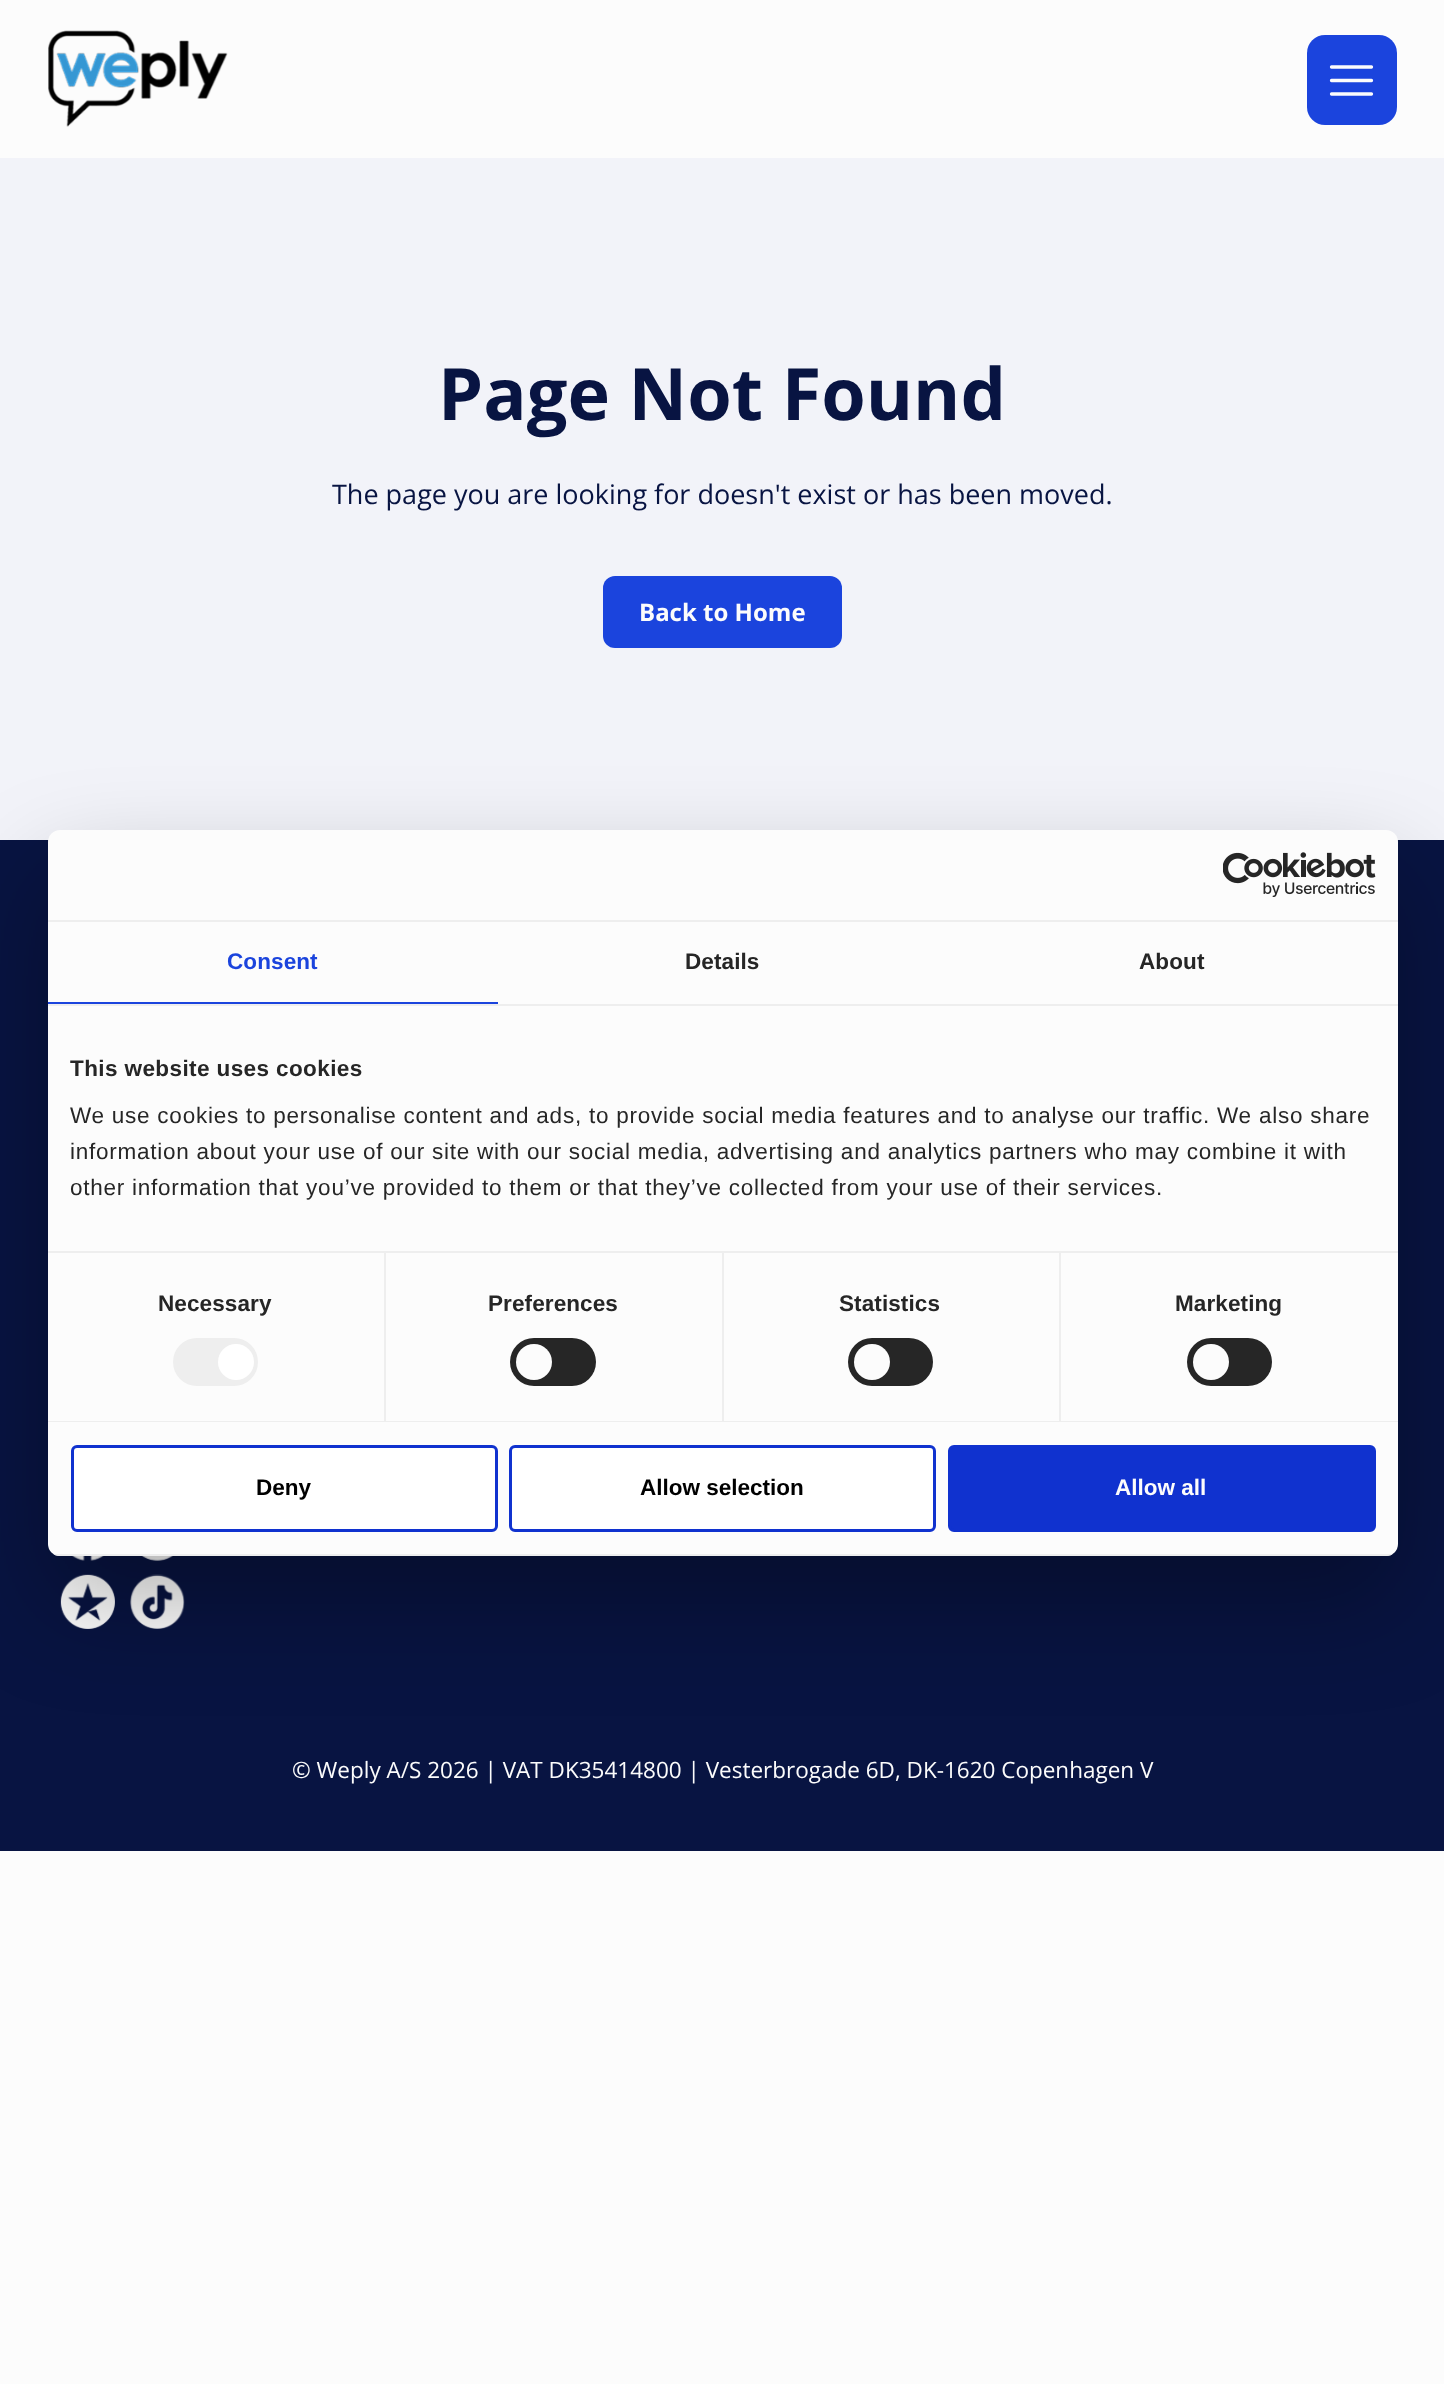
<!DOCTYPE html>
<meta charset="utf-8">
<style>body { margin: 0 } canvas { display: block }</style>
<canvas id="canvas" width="1444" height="2384"></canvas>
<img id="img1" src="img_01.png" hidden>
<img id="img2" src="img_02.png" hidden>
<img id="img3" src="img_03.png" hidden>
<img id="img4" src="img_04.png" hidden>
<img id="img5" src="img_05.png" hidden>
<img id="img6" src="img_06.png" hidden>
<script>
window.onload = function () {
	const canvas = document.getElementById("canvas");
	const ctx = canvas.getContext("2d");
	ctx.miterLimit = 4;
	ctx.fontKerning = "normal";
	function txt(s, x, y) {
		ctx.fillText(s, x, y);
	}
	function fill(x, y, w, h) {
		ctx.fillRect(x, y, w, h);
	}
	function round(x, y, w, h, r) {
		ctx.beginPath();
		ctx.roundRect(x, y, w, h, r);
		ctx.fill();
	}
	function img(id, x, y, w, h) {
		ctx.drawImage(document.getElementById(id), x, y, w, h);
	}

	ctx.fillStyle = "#FCFCFC";
	fill(0, 0, 1444, 2384);
	img("img1", 48, 30, 180, 97);
	ctx.fillStyle = "#1B44DD";
	round(1307, 35, 90, 90, 18);
	ctx.beginPath();
	ctx.moveTo(1331.5, 80.5);
	ctx.lineTo(1371.5, 80.5);
	ctx.moveTo(1331.5, 94);
	ctx.lineTo(1371.5, 94);
	ctx.moveTo(1331.5, 67);
	ctx.lineTo(1371.5, 67);
	ctx.strokeStyle = "#FCFCFC";
	ctx.lineWidth = 3.3;
	ctx.lineCap = "round";
	ctx.lineJoin = "round";
	ctx.stroke();
	ctx.fillStyle = "#F2F3F9";
	fill(0, 158, 1444, 682);
	ctx.fillStyle = "#1B44DD";
	round(603, 576, 239, 72, 12);
	ctx.fillStyle = "#081442";
	fill(0, 840, 1444, 1011);
	img("img2", 72, 1556, 32, 5);
	img("img3", 141, 1556, 32, 5);
	img("img4", 60, 1574, 55, 55);
	img("img5", 130, 1574, 55, 55);
	ctx.fillStyle = "rgba(0, 0, 0, 0.3)";
	ctx.filter = "blur(51px)";
	ctx.beginPath();
	ctx.roundRect(48, 878, 1350, 726, 12);
	ctx.fill();
	ctx.filter = "none";
	ctx.fillStyle = "#FCFCFC";
	round(48, 830, 1350, 726, 12);
	ctx.fillStyle = "#EEEEEE";
	fill(48, 920, 1350, 2);
	img("img6", 1223, 852, 153, 45);
	fill(48, 1004, 1350, 2);
	ctx.fillStyle = "#1B44DD";
	fill(48, 1002, 450, 2);
	ctx.fillStyle = "#EEEEEE";
	fill(48, 1251, 1350, 2);
	fill(48, 1421, 1350, 1);
	fill(384, 1253, 2, 168);
	round(173, 1338, 85, 48, 24);
	ctx.fillStyle = "#FFFFFF";
	ctx.beginPath();
	ctx.arc(236, 1362, 18, 0, Math.PI * 2);
	ctx.fill();
	ctx.fillStyle = "#EEEEEE";
	fill(722, 1253, 2, 168);
	ctx.fillStyle = "#262626";
	round(510, 1338, 86, 48, 24);
	ctx.fillStyle = "#FCFCFC";
	ctx.beginPath();
	ctx.arc(534, 1362, 18, 0, Math.PI * 2);
	ctx.fill();
	ctx.fillStyle = "#EEEEEE";
	fill(1059, 1253, 2, 168);
	ctx.fillStyle = "#262626";
	round(848, 1338, 85, 48, 24);
	ctx.fillStyle = "#FCFCFC";
	ctx.beginPath();
	ctx.arc(872, 1362, 18, 0, Math.PI * 2);
	ctx.fill();
	ctx.fillStyle = "#262626";
	round(1187, 1338, 85, 48, 24);
	ctx.fillStyle = "#FCFCFC";
	ctx.beginPath();
	ctx.arc(1211, 1362, 18, 0, Math.PI * 2);
	ctx.fill();
	ctx.save();
	ctx.beginPath();
	ctx.roundRect(48, 830, 1350, 726, 12);
	ctx.clip();
	ctx.fillStyle = "#EEEEEE";
	fill(48, 1554, 1350, 2);
	ctx.restore();
	ctx.fillStyle = "#FFFFFF";
	ctx.beginPath();
	ctx.roundRect(72.5, 1446.5, 424, 84, 4.5);
	ctx.fill();
	ctx.strokeStyle = "#1032CF";
	ctx.lineWidth = 3;
	ctx.lineJoin = "miter";
	ctx.stroke();
	ctx.beginPath();
	ctx.roundRect(510.5, 1446.5, 424, 84, 4.5);
	ctx.fill();
	ctx.stroke();
	ctx.fillStyle = "#1032CF";
	ctx.beginPath();
	ctx.roundRect(949.5, 1446.5, 425, 84, 4.5);
	ctx.fill();
	ctx.stroke();
	ctx.font = "bold 72px Open Sans";
	ctx.fillStyle = "#081442";
	txt("Page Not Found", 438, 420);
	ctx.font = "27px Open Sans";
	txt("The page you are looking for doesn't exist or has been moved.", 332, 504);
	ctx.font = "bold 24px Open Sans";
	ctx.fillStyle = "#FCFCFC";
	txt("Back to Home", 639, 621);
	ctx.font = "22.5px Open Sans";
	txt("© Weply A/S 2026 | VAT DK35414800 | Vesterbrogade 6D, DK-1620 Copenhagen V", 292, 1778);
	ctx.letterSpacing = "0.1px";
	ctx.font = "bold 22.5px Liberation Sans";
	ctx.fillStyle = "#1B44DD";
	txt("Consent", 227, 969);
	ctx.fillStyle = "#262626";
	txt("Details", 685, 969);
	txt("About", 1139, 969);
	ctx.letterSpacing = "0.4px";
	txt("This website uses cookies", 70, 1076);
	ctx.letterSpacing = "0.75px";
	ctx.font = "22.5px Liberation Sans";
	txt("We use cookies to personalise content and ads, to provide social media features and to analyse our traffic. We also share", 70, 1123);
	txt("information about your use of our site with our social media, advertising and analytics partners who may combine it with", 70, 1159);
	txt("other information that you’ve provided to them or that they’ve collected from your use of their services.", 70, 1195);
	ctx.letterSpacing = "0.1px";
	ctx.font = "bold 22.5px Liberation Sans";
	txt("Necessary", 158, 1311);
	txt("Preferences", 488, 1311);
	txt("Statistics", 839, 1311);
	txt("Marketing", 1175, 1311);
	ctx.letterSpacing = "0px";
	ctx.fillStyle = "#000000";
	txt("Deny", 256, 1495);
	txt("Allow selection", 640, 1495);
	ctx.fillStyle = "#FCFCFC";
	txt("Allow all", 1115, 1495);
};
</script>
